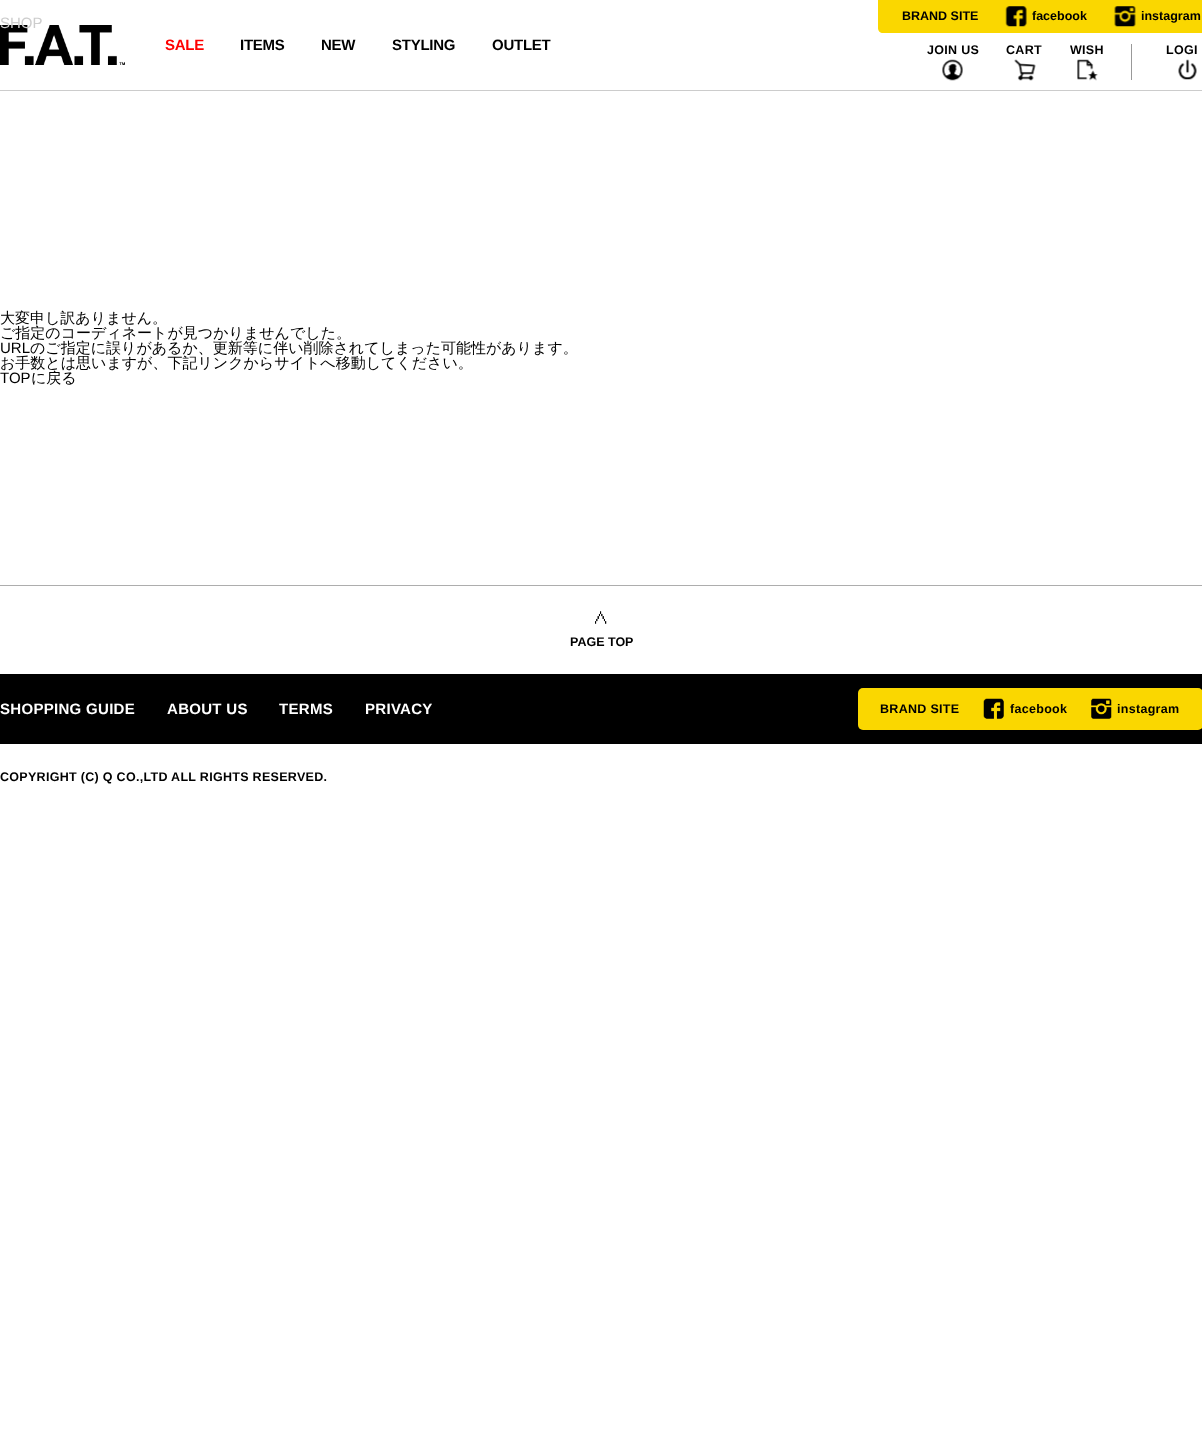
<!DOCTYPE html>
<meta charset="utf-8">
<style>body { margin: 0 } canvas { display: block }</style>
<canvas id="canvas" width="1202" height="1449"></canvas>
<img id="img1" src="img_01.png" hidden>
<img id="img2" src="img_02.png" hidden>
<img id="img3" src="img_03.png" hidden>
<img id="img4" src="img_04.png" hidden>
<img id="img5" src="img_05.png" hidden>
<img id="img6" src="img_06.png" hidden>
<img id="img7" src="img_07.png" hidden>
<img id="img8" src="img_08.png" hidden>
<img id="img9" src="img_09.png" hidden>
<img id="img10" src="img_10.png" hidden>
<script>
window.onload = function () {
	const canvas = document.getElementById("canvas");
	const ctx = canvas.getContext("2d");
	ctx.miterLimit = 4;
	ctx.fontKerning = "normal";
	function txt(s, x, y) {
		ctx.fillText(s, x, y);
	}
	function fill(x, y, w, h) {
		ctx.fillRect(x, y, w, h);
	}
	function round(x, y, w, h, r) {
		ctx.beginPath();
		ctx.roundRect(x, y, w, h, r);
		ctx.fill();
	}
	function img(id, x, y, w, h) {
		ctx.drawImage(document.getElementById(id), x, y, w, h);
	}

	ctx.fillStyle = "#FFFFFF";
	fill(0, 0, 1202, 1449);
	img("img1", 0, 25, 125, 40);
	ctx.fillStyle = "#FAD700";
	ctx.beginPath();
	ctx.moveTo(878, 0);
	ctx.lineTo(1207, 0);
	ctx.lineTo(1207, 28);
	ctx.bezierCurveTo(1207, 31, 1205, 33, 1202, 33);
	ctx.lineTo(883, 33);
	ctx.bezierCurveTo(880, 33, 878, 31, 878, 28);
	ctx.closePath();
	ctx.fill();
	img("img2", 1005, 6, 22, 21);
	img("img3", 1114, 6, 22, 21);
	img("img4", 942, 59, 21, 22);
	img("img5", 1014, 59, 22, 22);
	img("img6", 1077, 59, 21, 22);
	ctx.fillStyle = "#999999";
	fill(1131, 44, 1, 36);
	img("img7", 1178, 59, 19, 21);
	ctx.fillStyle = "#CCCCCC";
	fill(0, 90, 1202, 1);
	ctx.fillStyle = "#ADADAD";
	fill(0, 585, 1202, 1);
	img("img8", 595, 611, 12, 13);
	ctx.fillStyle = "#000000";
	fill(0, 674, 1202, 70);
	ctx.fillStyle = "#FAD700";
	round(858, 688, 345, 42, 5);
	img("img9", 983, 698, 21, 21);
	img("img10", 1091, 698, 21, 21);
	ctx.font = "15px Liberation Sans";
	ctx.fillStyle = "#CDCDCD";
	txt("SHOP", 0, 28);
	ctx.font = "bold 12.5px Liberation Sans";
	ctx.fillStyle = "#000000";
	txt("BRAND SITE", 902, 20);
	txt("facebook", 1032, 20);
	txt("instagram", 1141, 20);
	ctx.letterSpacing = "-0.25px";
	ctx.font = "bold 15px Liberation Sans";
	ctx.fillStyle = "#FF0000";
	txt("SALE", 165, 50);
	ctx.fillStyle = "#000000";
	txt("ITEMS", 240, 50);
	txt("NEW", 321, 50);
	txt("STYLING", 392, 50);
	txt("OUTLET", 492, 50);
	ctx.letterSpacing = "0.3px";
	ctx.font = "bold 12.5px Liberation Sans";
	txt("JOIN US", 927, 54);
	txt("CART", 1006, 54);
	txt("WISH", 1070, 54);
	txt("LOGI", 1166, 54);
	ctx.letterSpacing = "0px";
	ctx.font = "500 15px WenQuanYi Zen Hei";
	txt("大変申し訳ありません。", 0, 323);
	txt("ご指定のコーディネートが見つかりませんでした。", 0, 338);
	ctx.font = "15px Liberation Sans";
	txt("URL", 0, 353);
	ctx.font = "500 15px WenQuanYi Zen Hei";
	txt("のご指定に誤りがあるか、更新等に伴い削除されてしまった可能性があります。", 30, 353);
	txt("お手数とは思いますが、下記リンクからサイトへ移動してください。", 0, 368);
	ctx.font = "15px Liberation Sans";
	txt("TOP", 0, 383);
	ctx.font = "500 15px WenQuanYi Zen Hei";
	txt("に戻る", 31, 383);
	ctx.font = "bold 12.5px Liberation Sans";
	txt("PAGE TOP", 570, 646);
	ctx.letterSpacing = "0.3px";
	ctx.font = "bold 15px 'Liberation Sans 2'";
	ctx.fillStyle = "#FFFFFF";
	txt("SHOPPING GUIDE", 0, 714);
	txt("ABOUT US", 167, 714);
	txt("TERMS", 279, 714);
	txt("PRIVACY", 365, 714);
	ctx.font = "bold 12.5px Liberation Sans";
	ctx.fillStyle = "#000000";
	txt("BRAND SITE", 880, 713);
	txt("facebook", 1010, 713);
	txt("instagram", 1117, 713);
	txt("COPYRIGHT (C) Q CO.,LTD ALL RIGHTS RESERVED.", 0, 781);
};
</script>
